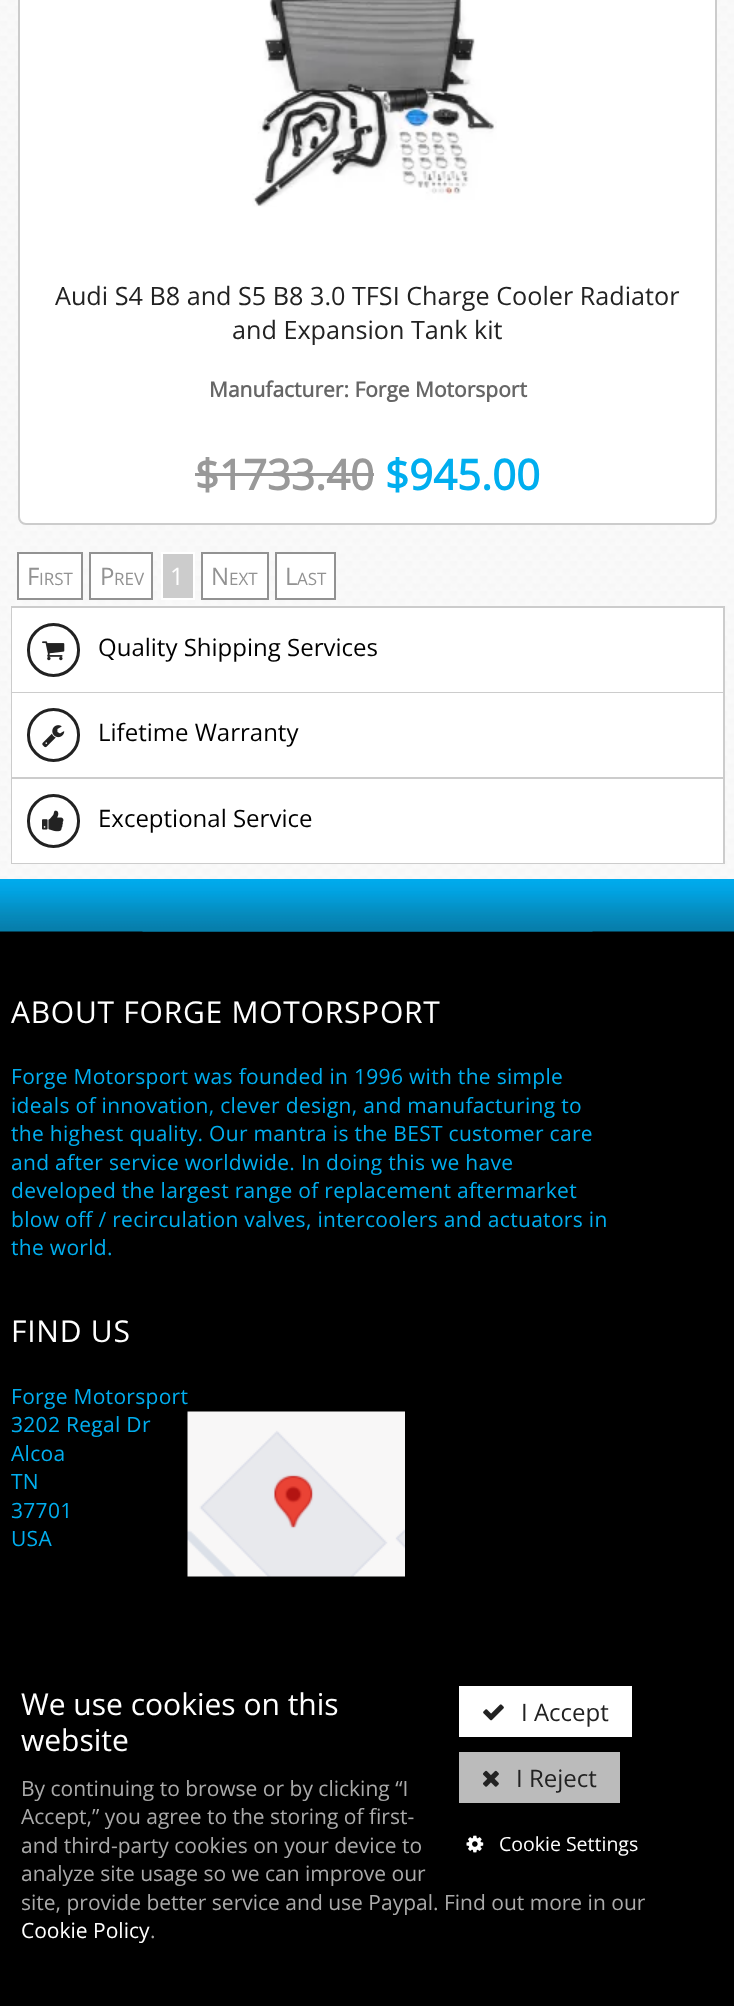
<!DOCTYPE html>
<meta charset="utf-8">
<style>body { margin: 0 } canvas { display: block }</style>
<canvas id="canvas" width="734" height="2006"></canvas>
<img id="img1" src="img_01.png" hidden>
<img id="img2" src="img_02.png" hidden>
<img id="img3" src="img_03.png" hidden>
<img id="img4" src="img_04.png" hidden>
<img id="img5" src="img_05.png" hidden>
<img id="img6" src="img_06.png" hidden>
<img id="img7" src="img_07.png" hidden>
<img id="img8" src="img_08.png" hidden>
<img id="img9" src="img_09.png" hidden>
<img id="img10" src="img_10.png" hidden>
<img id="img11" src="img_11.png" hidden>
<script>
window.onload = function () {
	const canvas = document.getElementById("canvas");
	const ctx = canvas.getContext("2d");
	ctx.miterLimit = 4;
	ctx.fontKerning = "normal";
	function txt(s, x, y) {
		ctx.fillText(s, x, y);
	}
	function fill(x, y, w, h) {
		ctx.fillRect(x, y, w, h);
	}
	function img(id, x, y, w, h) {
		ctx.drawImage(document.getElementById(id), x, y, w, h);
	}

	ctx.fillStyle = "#000000";
	fill(0, 0, 734, 2006);
	img("img1", 0, 0, 734, 879);
	ctx.fillStyle = "#FFFFFF";
	ctx.beginPath();
	ctx.roundRect(19, -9, 697, 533, 7);
	ctx.fill();
	ctx.strokeStyle = "#CCCCCC";
	ctx.lineWidth = 2;
	ctx.stroke();
	img("img2", 252, 0, 245, 207);
	ctx.fillStyle = "#999999";
	fill(195, 473, 179, 3);
	ctx.fillStyle = "#FFFFFF";
	ctx.beginPath();
	ctx.rect(18, 553, 64, 46);
	ctx.fill();
	ctx.strokeStyle = "#929292";
	ctx.stroke();
	ctx.beginPath();
	ctx.rect(90, 553, 62, 46);
	ctx.fill();
	ctx.stroke();
	ctx.fillStyle = "#CCCCCC";
	ctx.beginPath();
	ctx.rect(162, 553, 32, 46);
	ctx.fill();
	ctx.strokeStyle = "#FFFFFF";
	ctx.stroke();
	ctx.fillStyle = "#FFFFFF";
	ctx.beginPath();
	ctx.rect(202, 553, 66, 46);
	ctx.fill();
	ctx.strokeStyle = "#929292";
	ctx.stroke();
	ctx.beginPath();
	ctx.rect(276, 553, 59, 46);
	ctx.fill();
	ctx.stroke();
	ctx.strokeStyle = "#CCCCCC";
	ctx.strokeRect(12, 607, 712, 256);
	fill(12, 608, 711, 84);
	ctx.fillStyle = "#CCCCCC";
	fill(12, 692, 711, 1);
	ctx.beginPath();
	ctx.roundRect(28.5, 624.5, 50, 51, 25);
	ctx.strokeStyle = "#222222";
	ctx.lineWidth = 3;
	ctx.stroke();
	img("img3", 42, 641, 23, 20);
	ctx.fillStyle = "#FFFFFF";
	fill(12, 693, 711, 84);
	ctx.fillStyle = "#CCCCCC";
	fill(12, 777, 711, 2);
	ctx.beginPath();
	ctx.roundRect(28.5, 709.5, 50, 51, 25);
	ctx.stroke();
	img("img4", 42, 725, 23, 23);
	ctx.fillStyle = "#FFFFFF";
	fill(12, 779, 711, 84);
	ctx.beginPath();
	ctx.roundRect(28.5, 795.5, 50, 51, 25);
	ctx.stroke();
	img("img5", 42, 810, 22, 22);
	img("img6", 0, 879, 734, 53);
	img("img7", 142, 931, 451, 1);
	img("img8", 187, 1411, 218, 166);
	fill(459, 1686, 173, 51);
	img("img9", 483, 1704, 21, 17);
	ctx.fillStyle = "#BBBBBB";
	fill(459, 1752, 161, 51);
	img("img10", 483, 1770, 16, 17);
	img("img11", 466, 1835, 18, 18);
	ctx.font = "25.2px Open Sans";
	ctx.fillStyle = "#222222";
	txt("Audi S4 B8 and S5 B8 3.0 TFSI Charge Cooler Radiator", 55, 305);
	txt("and Expansion Tank kit", 232, 339);
	ctx.font = "bold 21px Open Sans";
	ctx.fillStyle = "#666666";
	txt("Manufacturer: Forge Motorsport", 209, 397);
	ctx.font = "bold 42px Open Sans";
	ctx.fillStyle = "#999999";
	txt("$1733.40", 195, 490);
	ctx.fillStyle = "#00AEEF";
	txt("$945.00", 385, 490);
	ctx.font = "24px Open Sans";
	ctx.fillStyle = "#929292";
	txt("F", 27, 585);
	ctx.font = "17px Open Sans";
	txt("IRST", 39, 585);
	ctx.font = "24px Open Sans";
	txt("P", 100, 585);
	ctx.font = "17px Open Sans";
	txt("REV", 114, 585);
	ctx.font = "24px Open Sans";
	ctx.fillStyle = "#FFFFFF";
	txt("1", 170, 585);
	ctx.fillStyle = "#929292";
	txt("N", 211, 585);
	ctx.font = "17px Open Sans";
	txt("EXT", 229, 585);
	ctx.font = "24px Open Sans";
	txt("L", 285, 585);
	ctx.font = "17px Open Sans";
	txt("AST", 297, 585);
	ctx.font = "24px Open Sans";
	ctx.fillStyle = "#000000";
	txt("Quality Shipping Services", 98, 656);
	txt("Lifetime Warranty", 98, 741);
	txt("Exceptional Service", 98, 827);
	ctx.letterSpacing = "0.75px";
	ctx.font = "30px Open Sans";
	ctx.fillStyle = "#FFFFFF";
	txt("ABOUT FORGE MOTORSPORT", 11, 1023);
	ctx.letterSpacing = "0.3px";
	ctx.font = "21px Open Sans";
	ctx.fillStyle = "#00AEEF";
	txt("Forge Motorsport was founded in 1996 with the simple", 11, 1084);
	txt("ideals of innovation, clever design, and manufacturing to", 11, 1113);
	txt("the highest quality. Our mantra is the BEST customer care", 11, 1141);
	txt("and after service worldwide. In doing this we have", 11, 1170);
	txt("developed the largest range of replacement aftermarket", 11, 1198);
	txt("blow off / recirculation valves, intercoolers and actuators in", 11, 1227);
	txt("the world.", 11, 1255);
	ctx.letterSpacing = "0.75px";
	ctx.font = "30px Open Sans";
	ctx.fillStyle = "#FFFFFF";
	txt("FIND US", 11, 1342);
	ctx.letterSpacing = "0.3px";
	ctx.font = "21px Open Sans";
	ctx.fillStyle = "#00AEEF";
	txt("Forge Motorsport", 11, 1404);
	txt("3202 Regal Dr", 11, 1432);
	txt("Alcoa", 11, 1461);
	txt("TN", 11, 1489);
	txt("37701", 11, 1518);
	txt("USA", 11, 1546);
	ctx.letterSpacing = "0px";
	ctx.font = "30px Open Sans";
	ctx.fillStyle = "#FFFFFF";
	txt("We use cookies on this", 21, 1715);
	txt("website", 21, 1751);
	ctx.font = "24px Open Sans";
	ctx.fillStyle = "#222222";
	txt("I Accept", 521, 1721);
	txt("I Reject", 516, 1787);
	ctx.font = "19.5px Open Sans";
	ctx.fillStyle = "#FFFFFF";
	txt("Cookie Settings", 499, 1851);
	ctx.font = "21px Open Sans";
	ctx.fillStyle = "#AAAAAA";
	txt("By continuing to browse or by clicking “I", 21, 1796);
	txt("Accept,” you agree to the storing of first-", 21, 1824);
	txt("and third-party cookies on your device to", 21, 1853);
	txt("analyze site usage so we can improve our", 21, 1881);
	txt("site, provide better service and use Paypal. Find out more in our", 21, 1910);
	ctx.fillStyle = "#FFFFFF";
	txt("Cookie Policy", 21, 1938);
	ctx.fillStyle = "#AAAAAA";
	txt(".", 150, 1938);
};
</script>
